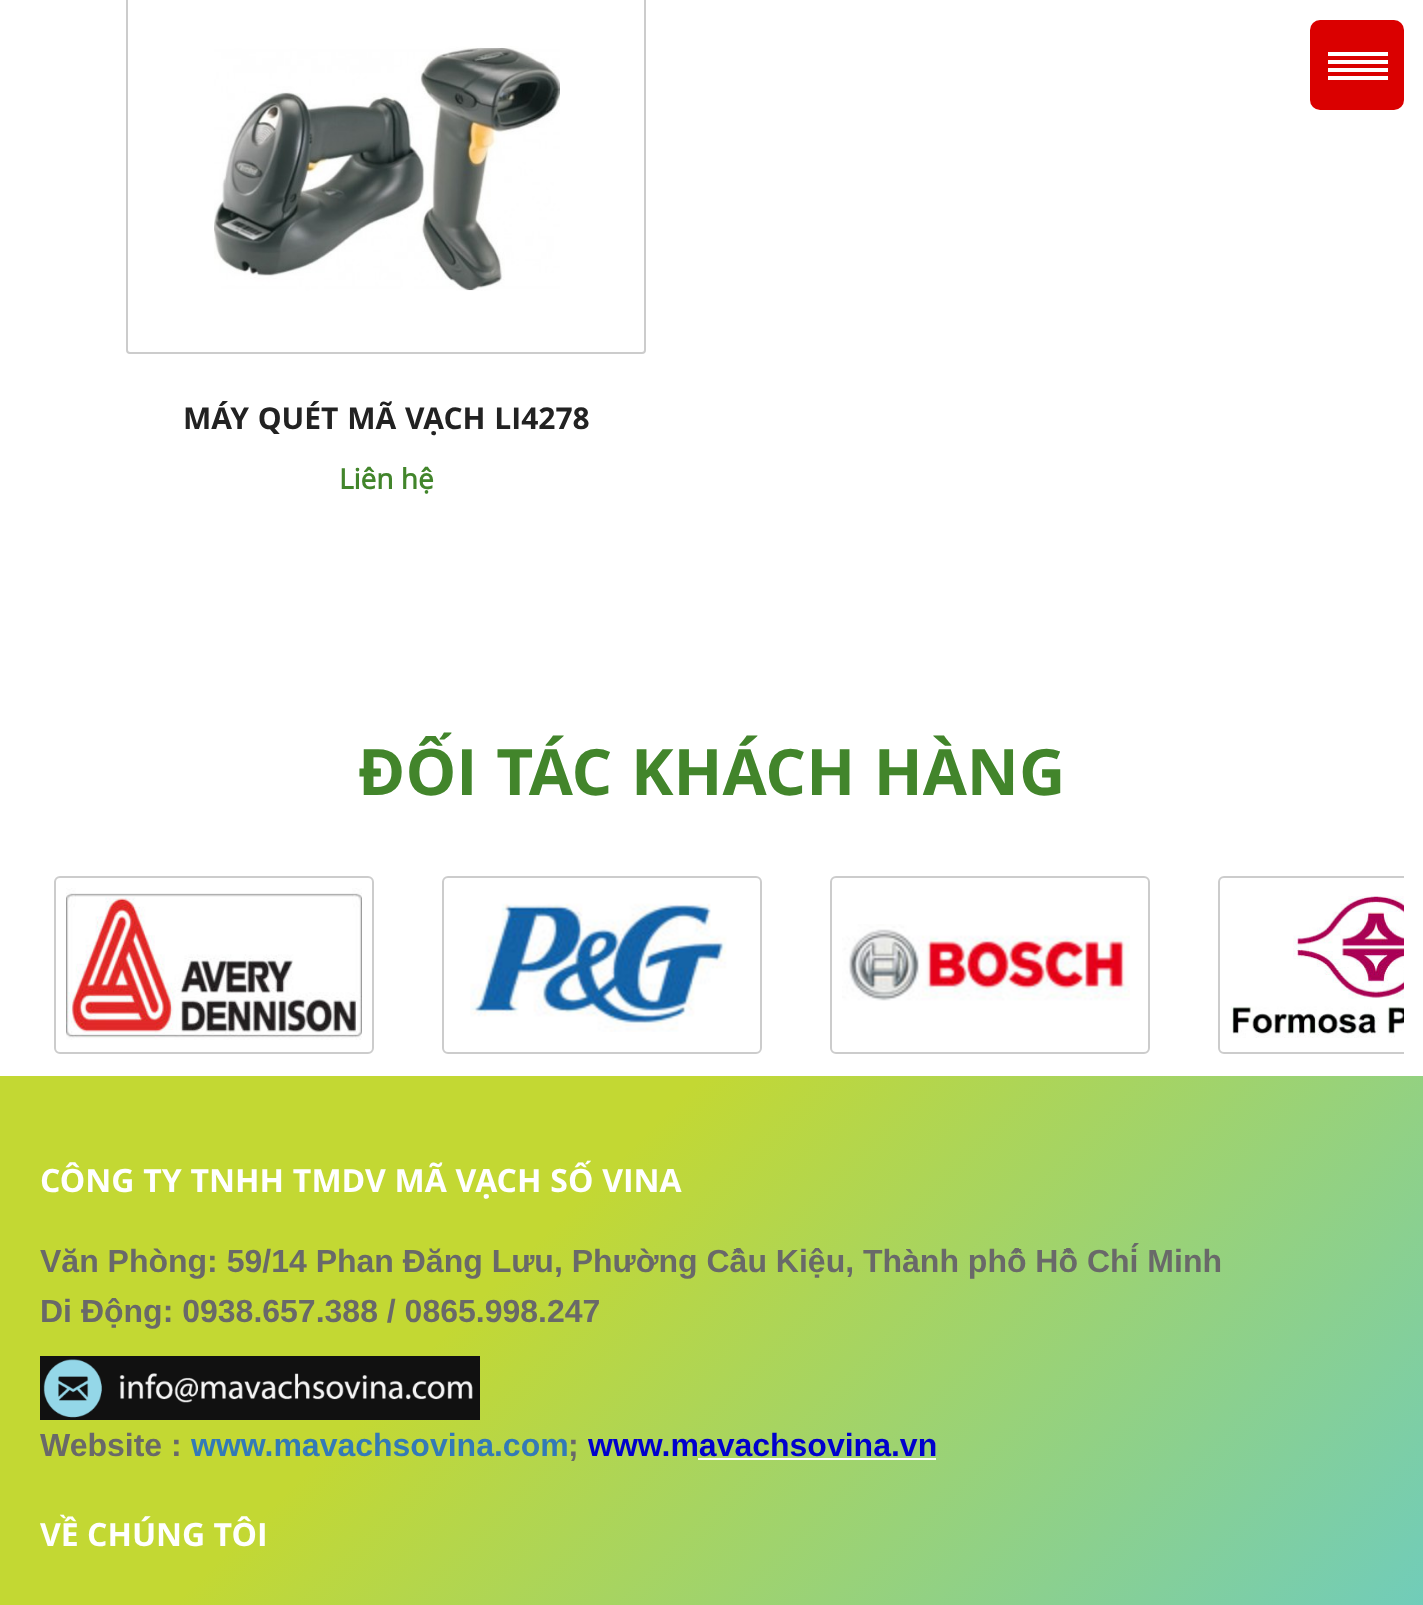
<!DOCTYPE html>
<meta charset="utf-8">
<style>body { margin: 0 } canvas { display: block }</style>
<canvas id="canvas" width="1423" height="1605"></canvas>
<img id="img1" src="img_01.png" hidden>
<img id="img2" src="img_02.png" hidden>
<img id="img3" src="img_03.png" hidden>
<img id="img4" src="img_04.png" hidden>
<img id="img5" src="img_05.png" hidden>
<img id="img6" src="img_06.png" hidden>
<script>
window.onload = function () {
	const canvas = document.getElementById("canvas");
	const ctx = canvas.getContext("2d");
	ctx.miterLimit = 4;
	ctx.fontKerning = "normal";
	function txt(s, x, y) {
		ctx.fillText(s, x, y);
	}
	function fill(x, y, w, h) {
		ctx.fillRect(x, y, w, h);
	}
	function round(x, y, w, h, r) {
		ctx.beginPath();
		ctx.roundRect(x, y, w, h, r);
		ctx.fill();
	}
	function img(id, x, y, w, h) {
		ctx.drawImage(document.getElementById(id), x, y, w, h);
	}
	let gradient;

	ctx.fillStyle = "#FFFFFF";
	fill(0, 0, 1423, 1605);
	ctx.fillStyle = "#DA0000";
	round(1310, 20, 94, 90, 10);
	ctx.fillStyle = "#FFFFFF";
	fill(1328, 52, 60, 4);
	fill(1328, 60, 60, 4);
	fill(1328, 68, 60, 4);
	fill(1328, 76, 60, 4);
	ctx.beginPath();
	ctx.roundRect(127, -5, 518, 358, 3);
	ctx.strokeStyle = "#CCCCCC";
	ctx.lineWidth = 2;
	ctx.stroke();
	img("img1", 214, 46, 346, 245);
	ctx.beginPath();
	ctx.roundRect(55, 877, 318, 176, 5);
	ctx.stroke();
	img("img2", 66, 888, 296, 152);
	ctx.beginPath();
	ctx.roundRect(443, 877, 318, 176, 5);
	ctx.stroke();
	img("img3", 470, 903, 257, 129);
	ctx.beginPath();
	ctx.roundRect(831, 877, 318, 176, 5);
	ctx.stroke();
	img("img4", 842, 924, 288, 77);
	ctx.save();
	ctx.beginPath();
	ctx.rect(20, 856, 1384, 220);
	ctx.clip();
	ctx.beginPath();
	ctx.roundRect(1219, 877, 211, 176, 5);
	ctx.stroke();
	ctx.restore();
	img("img5", 1230, 896, 174, 142);
	gradient = ctx.createLinearGradient(107, 969, 1317, 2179);
	gradient.addColorStop(0.29, "#C3D833");
	gradient.addColorStop(1, "#52C8EC");
	ctx.fillStyle = gradient;
	fill(0, 1076, 1423, 529);
	img("img6", 40, 1356, 440, 64);
	ctx.fillStyle = "#FFFFFF";
	fill(698, 1458, 238, 2);
	ctx.wordSpacing = "1px";
	ctx.font = "bold 30px Open Sans";
	ctx.fillStyle = "#222222";
	txt("MÁY QUÉT MÃ VẠCH LI4278", 183, 429);
	ctx.wordSpacing = "0px";
	ctx.font = "bold 28px 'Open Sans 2'";
	ctx.fillStyle = "#42852B";
	txt("Liên hệ", 339, 489);
	ctx.wordSpacing = "2px";
	ctx.font = "bold 64px Open Sans";
	txt("ĐỐI TÁC KHÁCH HÀNG", 358, 795);
	ctx.wordSpacing = "0.5px";
	ctx.font = "bold 32px Open Sans";
	ctx.fillStyle = "#FFFFFF";
	txt("CÔNG TY TNHH TMDV MÃ VẠCH SỐ VINA", 40, 1192);
	ctx.wordSpacing = "0px";
	ctx.font = "bold 32px Liberation Sans";
	ctx.fillStyle = "#696969";
	txt("Văn Phòng: 59/14 Phan Đăng Lưu, Phường Cầu Kiệu, Thành phố Hồ Chí Minh", 40, 1272);
	txt("Di Động: 0938.657.388 / 0865.998.247", 40, 1322);
	txt("Website :", 40, 1456);
	ctx.fillStyle = "#337AB7";
	txt("www.mavachsovina.com", 191, 1456);
	ctx.fillStyle = "#696969";
	txt(";", 568, 1456);
	ctx.fillStyle = "#0000CD";
	txt("www.mavachsovina.vn", 588, 1456);
	ctx.font = "bold 32px Open Sans";
	ctx.fillStyle = "#FFFFFF";
	txt("VỀ CHÚNG TÔI", 40, 1546);
};
</script>
